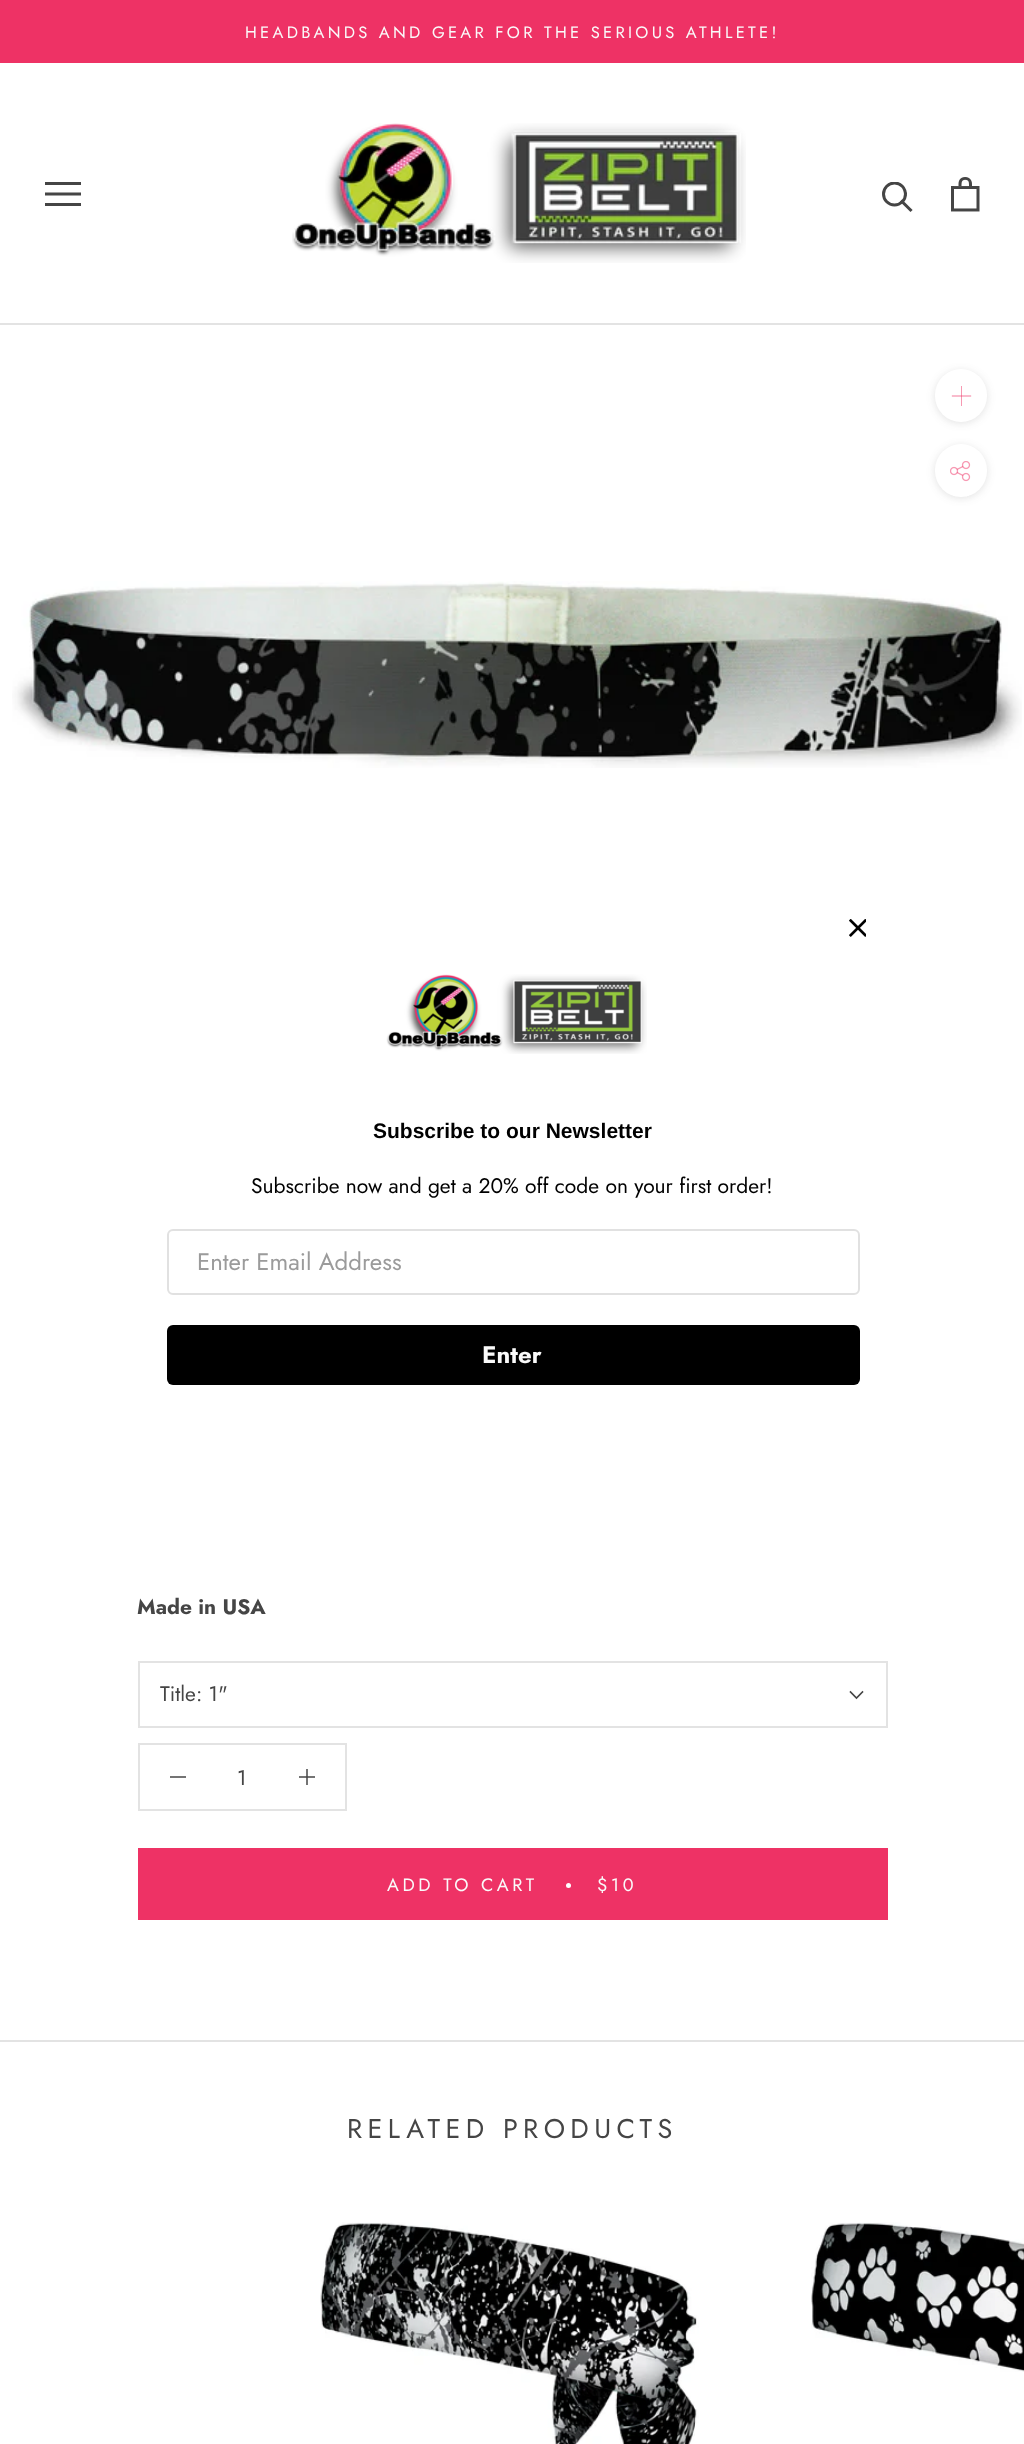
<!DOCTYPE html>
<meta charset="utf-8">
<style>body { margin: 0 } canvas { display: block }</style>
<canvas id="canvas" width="1024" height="2444"></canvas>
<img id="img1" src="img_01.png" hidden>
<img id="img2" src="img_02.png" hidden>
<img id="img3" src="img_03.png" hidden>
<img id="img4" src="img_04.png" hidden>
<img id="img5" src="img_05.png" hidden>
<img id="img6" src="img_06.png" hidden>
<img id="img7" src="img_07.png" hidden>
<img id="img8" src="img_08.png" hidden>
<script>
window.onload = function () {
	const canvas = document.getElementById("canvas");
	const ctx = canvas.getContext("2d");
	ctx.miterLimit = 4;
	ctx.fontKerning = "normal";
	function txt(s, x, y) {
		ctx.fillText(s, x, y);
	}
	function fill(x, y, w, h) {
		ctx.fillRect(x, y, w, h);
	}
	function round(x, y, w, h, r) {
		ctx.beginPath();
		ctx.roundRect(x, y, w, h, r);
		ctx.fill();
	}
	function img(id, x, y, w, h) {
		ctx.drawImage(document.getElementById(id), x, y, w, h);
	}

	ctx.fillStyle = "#FFFFFF";
	fill(0, 0, 1024, 2444);
	ctx.fillStyle = "#747474";
	fill(299, 1776, 16, 2);
	ctx.fillStyle = "#EE3265";
	fill(0, 0, 1024, 63);
	ctx.fillStyle = "#E3E3E3";
	fill(0, 323, 1024, 2);
	ctx.fillStyle = "#454545";
	ctx.beginPath();
	ctx.moveTo(45, 206);
	ctx.lineTo(45, 203);
	ctx.lineTo(81, 203);
	ctx.lineTo(81, 206);
	ctx.closePath();
	ctx.moveTo(45, 192.5);
	ctx.lineTo(81, 192.5);
	ctx.lineTo(81, 195.5);
	ctx.lineTo(45, 195.5);
	ctx.closePath();
	ctx.moveTo(45, 182);
	ctx.lineTo(81, 182);
	ctx.lineTo(81, 185);
	ctx.lineTo(45, 185);
	ctx.closePath();
	ctx.fill();
	img("img1", 292, 123, 454, 140);
	ctx.beginPath();
	ctx.moveTo(910.5, 210);
	ctx.lineTo(902, 201.5);
	ctx.strokeStyle = "#454545";
	ctx.lineWidth = 3;
	ctx.lineCap = "square";
	ctx.stroke();
	ctx.save();
	ctx.beginPath();
	ctx.rect(882, 182, 32, 31);
	ctx.clip();
	ctx.beginPath();
	ctx.arc(894.5, 194, 11, 0, Math.PI * 2);
	ctx.stroke();
	ctx.restore();
	img("img2", 951, 177, 29, 35);
	ctx.fillStyle = "rgba(54, 54, 54, 0.15)";
	ctx.filter = "blur(4px)";
	ctx.beginPath();
	ctx.roundRect(935, 371, 52, 52, 26);
	ctx.fill();
	ctx.filter = "none";
	ctx.fillStyle = "#FFFFFF";
	round(935, 369, 52, 53, 26);
	ctx.fillStyle = "#F799B2";
	fill(961, 386, 1, 20);
	ctx.beginPath();
	ctx.moveTo(952.5, 396);
	ctx.lineTo(970.5, 396);
	ctx.strokeStyle = "rgba(238, 50, 101, 0.5)";
	ctx.lineWidth = 1.3;
	ctx.stroke();
	ctx.fillStyle = "rgba(54, 54, 54, 0.15)";
	ctx.filter = "blur(4px)";
	ctx.beginPath();
	ctx.roundRect(935, 446, 52, 52, 26);
	ctx.fill();
	ctx.filter = "none";
	ctx.fillStyle = "#FFFFFF";
	round(935, 444, 52, 53, 26);
	img("img3", 950, 461, 21, 21);
	ctx.save();
	ctx.beginPath();
	ctx.roundRect(935, 444, 52, 53, 26);
	ctx.clip();
	ctx.beginPath();
	ctx.moveTo(970, 493.5);
	ctx.lineTo(951.5, 511.5);
	ctx.moveTo(970, 511.5);
	ctx.lineTo(951.5, 493.5);
	ctx.strokeStyle = "#FFFFFF";
	ctx.lineCap = "butt";
	ctx.stroke();
	ctx.restore();
	img("img4", 12, 581, 1010, 187);
	ctx.strokeStyle = "#E3E3E3";
	ctx.lineWidth = 2;
	ctx.strokeRect(139, 1662, 748, 65);
	ctx.beginPath();
	ctx.moveTo(862.5, 1692);
	ctx.lineTo(856.5, 1698);
	ctx.lineTo(850.5, 1692);
	ctx.strokeStyle = "#454545";
	ctx.lineWidth = 1.6;
	ctx.stroke();
	ctx.strokeStyle = "#E3E3E3";
	ctx.lineWidth = 2;
	ctx.strokeRect(139, 1744, 207, 66);
	ctx.fillStyle = "#747474";
	fill(170, 1776, 16, 2);
	fill(306, 1769, 2, 16);
	ctx.fillStyle = "#515151";
	fill(306, 1776, 2, 2);
	ctx.strokeStyle = "#EE3265";
	ctx.strokeRect(139, 1849, 748, 70);
	ctx.fillStyle = "#EE3265";
	fill(140, 1850, 746, 68);
	ctx.fillStyle = "#FFFFFF";
	ctx.beginPath();
	ctx.arc(568.5, 1885.5, 2.5, 0, Math.PI * 2);
	ctx.fill();
	ctx.fillStyle = "#E3E3E3";
	fill(0, 2040, 1024, 2);
	img("img5", 320, 2222, 379, 222);
	img("img6", 811, 2222, 213, 150);
	img("img7", 849, 919, 17, 18);
	img("img8", 386, 974, 261, 80);
	ctx.beginPath();
	ctx.roundRect(168, 1230, 691, 64, 5);
	ctx.strokeStyle = "#E1E1E1";
	ctx.stroke();
	ctx.fillStyle = "#000000";
	round(167, 1325, 693, 60, 6);
	ctx.letterSpacing = "3.3px";
	ctx.font = "16.5px Jost";
	ctx.fillStyle = "#FAFAFA";
	txt("HEADBANDS AND GEAR FOR THE SERIOUS ATHLETE!", 245, 38);
	ctx.letterSpacing = "0px";
	ctx.font = "bold 21px Jost";
	ctx.fillStyle = "#454545";
	txt("Made in USA", 137, 1614);
	ctx.font = "21px Jost";
	txt("Title: 1\"", 160, 1701);
	txt("1", 237, 1785);
	ctx.letterSpacing = "3.6px";
	ctx.font = "18px Jost";
	ctx.fillStyle = "#FAFAFA";
	txt("ADD TO CART", 387, 1891);
	txt("$10", 597, 1891);
	ctx.letterSpacing = "5.4px";
	ctx.font = "27px Jost";
	ctx.fillStyle = "#454545";
	txt("RELATED PRODUCTS", 347, 2138);
	ctx.letterSpacing = "0px";
	ctx.font = "bold 21px Liberation Sans";
	ctx.fillStyle = "#000000";
	txt("Subscribe to our Newsletter", 373, 1138);
	ctx.font = "21px Jost";
	txt("Subscribe now and get a 20% off code on your first order!", 251, 1193);
	ctx.font = "24px Jost";
	ctx.fillStyle = "#9B9B9B";
	txt("Enter Email Address", 197, 1270);
	ctx.font = "bold 24px Jost";
	ctx.fillStyle = "#FAFAFA";
	txt("Enter", 482, 1363);
};
</script>
